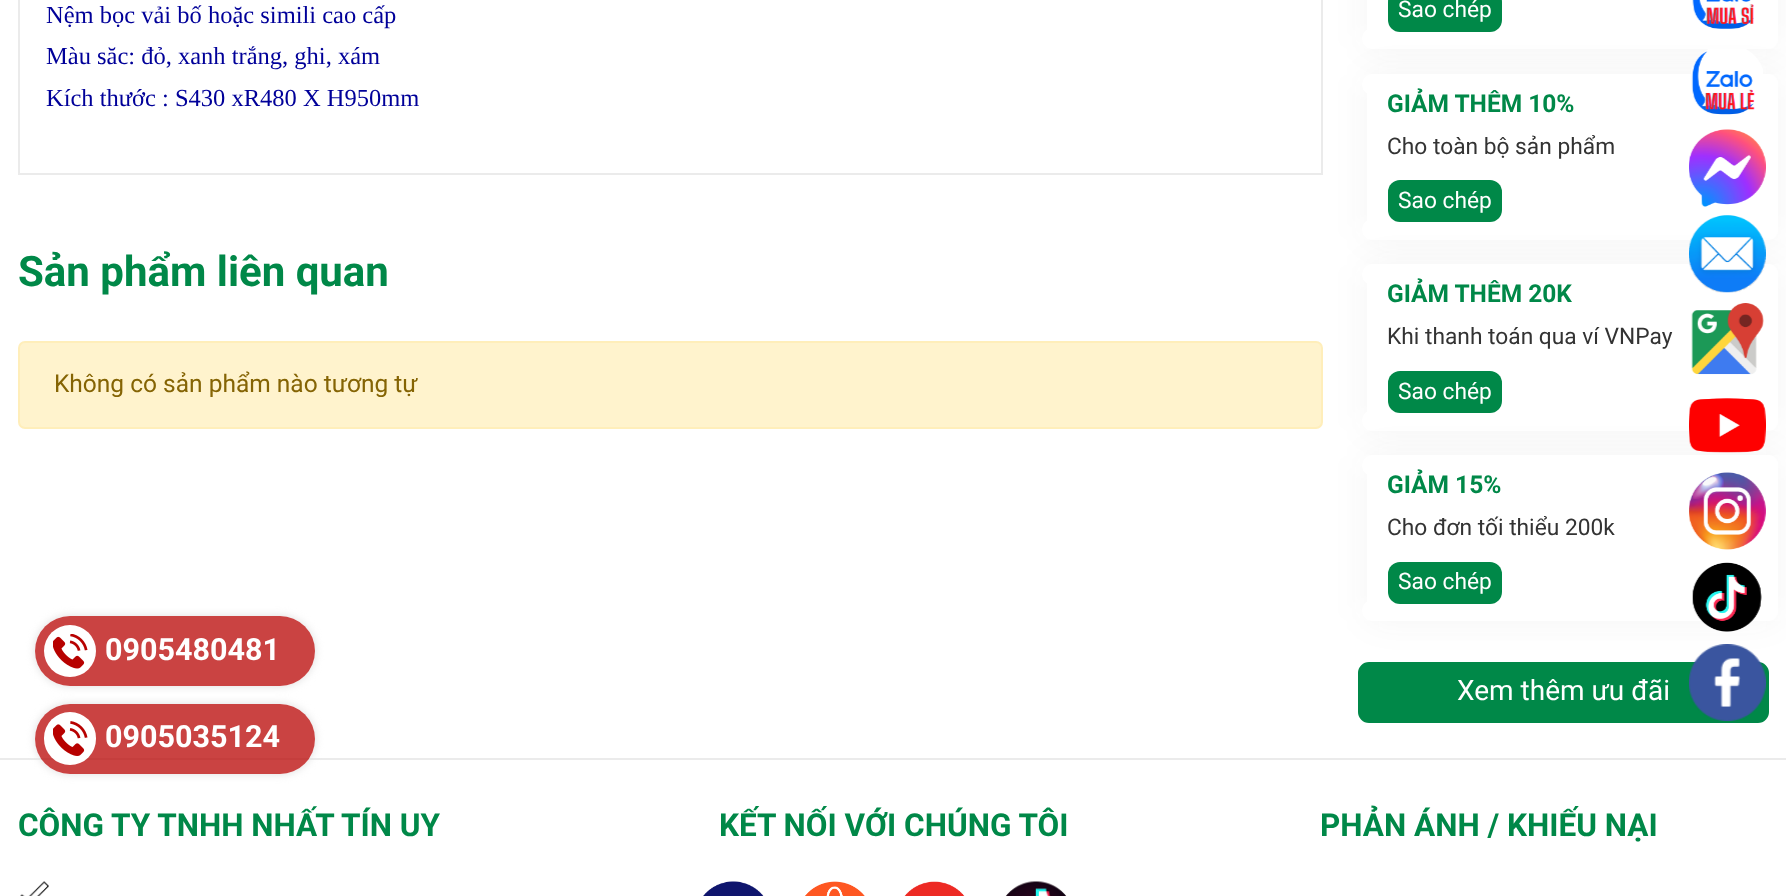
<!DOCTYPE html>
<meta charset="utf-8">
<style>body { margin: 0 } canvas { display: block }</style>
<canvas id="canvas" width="1786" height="896"></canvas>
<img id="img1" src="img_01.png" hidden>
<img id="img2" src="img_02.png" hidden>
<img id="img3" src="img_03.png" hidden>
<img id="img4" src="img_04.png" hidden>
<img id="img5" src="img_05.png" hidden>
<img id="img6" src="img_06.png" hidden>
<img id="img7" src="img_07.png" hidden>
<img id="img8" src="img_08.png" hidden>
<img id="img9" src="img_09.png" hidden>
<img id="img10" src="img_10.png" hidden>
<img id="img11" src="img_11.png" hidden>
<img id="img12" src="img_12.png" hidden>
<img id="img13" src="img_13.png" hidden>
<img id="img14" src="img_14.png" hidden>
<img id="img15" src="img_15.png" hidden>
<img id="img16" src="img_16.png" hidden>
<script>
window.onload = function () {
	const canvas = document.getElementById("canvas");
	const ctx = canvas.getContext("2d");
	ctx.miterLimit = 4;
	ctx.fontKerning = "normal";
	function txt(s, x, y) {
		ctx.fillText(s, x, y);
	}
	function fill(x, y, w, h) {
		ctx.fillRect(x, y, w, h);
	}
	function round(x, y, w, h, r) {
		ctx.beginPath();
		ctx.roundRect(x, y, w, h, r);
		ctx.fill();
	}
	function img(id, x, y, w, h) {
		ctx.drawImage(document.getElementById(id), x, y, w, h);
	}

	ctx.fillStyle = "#FFFFFF";
	fill(0, 0, 1786, 896);
	ctx.strokeStyle = "#EBEBEB";
	ctx.lineWidth = 2;
	ctx.strokeRect(19, -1, 1303, 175);
	ctx.fillStyle = "#FFF3CD";
	ctx.beginPath();
	ctx.roundRect(19, 342, 1303, 86, 6);
	ctx.fill();
	ctx.strokeStyle = "#FFEEBA";
	ctx.stroke();
	ctx.fillStyle = "rgba(44, 44, 44, 0.05)";
	ctx.filter = "blur(17.5px)";
	ctx.beginPath();
	ctx.roundRect(1367, -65, 411, 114, 12);
	ctx.fill();
	ctx.filter = "none";
	ctx.fillStyle = "#FFFFFF";
	fill(1367, 0, 3, 30);
	round(1370, -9, 408, 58, 9);
	ctx.fillStyle = "#008848";
	round(1388, -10, 114, 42, 12);
	ctx.fillStyle = "#FFFFFF";
	ctx.beginPath();
	ctx.roundRect(1362, 28, 21, 21, [10.5, 10.5, 0, 10.5]);
	ctx.fill();
	ctx.fillStyle = "rgba(44, 44, 44, 0.05)";
	ctx.filter = "blur(17.5px)";
	ctx.beginPath();
	ctx.roundRect(1367, 74, 411, 166, 12);
	ctx.fill();
	ctx.filter = "none";
	ctx.fillStyle = "#FFFFFF";
	fill(1367, 93, 3, 128);
	round(1370, 74, 408, 166, 9);
	ctx.beginPath();
	ctx.roundRect(1362, 74, 21, 21, [10.5, 0, 10.5, 10.5]);
	ctx.fill();
	ctx.fillStyle = "#008848";
	round(1388, 180, 114, 42, 12);
	ctx.fillStyle = "#FFFFFF";
	ctx.beginPath();
	ctx.roundRect(1362, 219, 21, 21, [10.5, 10.5, 0, 10.5]);
	ctx.fill();
	ctx.fillStyle = "rgba(44, 44, 44, 0.05)";
	ctx.filter = "blur(17.5px)";
	ctx.beginPath();
	ctx.roundRect(1367, 264, 411, 167, 12);
	ctx.fill();
	ctx.filter = "none";
	ctx.fillStyle = "#FFFFFF";
	fill(1367, 283, 3, 129);
	round(1370, 264, 408, 167, 9);
	ctx.beginPath();
	ctx.roundRect(1362, 264, 21, 21, [10.5, 0, 10.5, 10.5]);
	ctx.fill();
	ctx.fillStyle = "#008848";
	round(1388, 371, 114, 42, 12);
	ctx.fillStyle = "#FFFFFF";
	ctx.beginPath();
	ctx.roundRect(1362, 410, 21, 21, [10.5, 10.5, 0, 10.5]);
	ctx.fill();
	ctx.fillStyle = "#008848";
	ctx.beginPath();
	ctx.roundRect(1359, 663, 409, 59, 10);
	ctx.fill();
	ctx.strokeStyle = "#008848";
	ctx.stroke();
	ctx.fillStyle = "rgba(44, 44, 44, 0.05)";
	ctx.filter = "blur(17.5px)";
	ctx.beginPath();
	ctx.roundRect(1367, 455, 411, 166, 12);
	ctx.fill();
	ctx.filter = "none";
	ctx.fillStyle = "#FFFFFF";
	fill(1367, 474, 3, 128);
	round(1370, 455, 408, 166, 9);
	ctx.beginPath();
	ctx.roundRect(1362, 455, 21, 21, [10.5, 0, 10.5, 10.5]);
	ctx.fill();
	ctx.fillStyle = "#008848";
	round(1388, 562, 114, 42, 12);
	ctx.fillStyle = "#FFFFFF";
	ctx.beginPath();
	ctx.roundRect(1362, 600, 21, 21, [10.5, 10.5, 0, 10.5]);
	ctx.fill();
	img("img1", 1692, 0, 62, 29);
	img("img2", 1691, 49, 72, 66);
	img("img3", 1689, 129, 77, 78);
	img("img4", 1689, 215, 77, 78);
	img("img5", 1691, 303, 73, 72);
	img("img6", 1689, 398, 77, 55);
	img("img7", 1689, 472, 77, 78);
	img("img8", 1692, 562, 70, 70);
	img("img9", 1689, 644, 77, 77);
	ctx.save();
	ctx.beginPath();
	ctx.moveTo(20, 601);
	ctx.lineTo(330, 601);
	ctx.lineTo(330, 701);
	ctx.lineTo(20, 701);
	ctx.closePath();
	ctx.moveTo(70, 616);
	ctx.lineTo(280, 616);
	ctx.bezierCurveTo(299.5, 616, 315, 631.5, 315, 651);
	ctx.bezierCurveTo(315, 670.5, 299.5, 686, 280, 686);
	ctx.lineTo(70, 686);
	ctx.bezierCurveTo(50.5, 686, 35, 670.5, 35, 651);
	ctx.bezierCurveTo(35, 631.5, 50.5, 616, 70, 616);
	ctx.closePath();
	ctx.clip("evenodd");
	ctx.fillStyle = "#DDDDDD";
	ctx.filter = "blur(4.5px)";
	ctx.beginPath();
	ctx.roundRect(35, 616, 280, 70, 35);
	ctx.fill();
	ctx.filter = "none";
	ctx.restore();
	ctx.fillStyle = "rgba(183, 1, 0, 0.74)";
	round(35, 616, 280, 70, 35);
	ctx.fillStyle = "#FFFFFF";
	ctx.beginPath();
	ctx.arc(70, 651, 26, 0, Math.PI * 2);
	ctx.fill();
	img("img10", 53, 634, 35, 35);
	ctx.fillStyle = "#EBEBEB";
	fill(0, 758, 1786, 2);
	ctx.save();
	ctx.beginPath();
	ctx.moveTo(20, 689);
	ctx.lineTo(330, 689);
	ctx.lineTo(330, 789);
	ctx.lineTo(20, 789);
	ctx.closePath();
	ctx.moveTo(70, 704);
	ctx.lineTo(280, 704);
	ctx.bezierCurveTo(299.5, 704, 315, 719.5, 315, 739);
	ctx.bezierCurveTo(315, 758.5, 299.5, 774, 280, 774);
	ctx.lineTo(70, 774);
	ctx.bezierCurveTo(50.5, 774, 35, 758.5, 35, 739);
	ctx.bezierCurveTo(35, 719.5, 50.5, 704, 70, 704);
	ctx.closePath();
	ctx.clip("evenodd");
	ctx.fillStyle = "#DDDDDD";
	ctx.filter = "blur(4.5px)";
	ctx.beginPath();
	ctx.roundRect(35, 704, 280, 70, 35);
	ctx.fill();
	ctx.filter = "none";
	ctx.restore();
	ctx.fillStyle = "rgba(183, 1, 0, 0.74)";
	round(35, 704, 280, 70, 35);
	ctx.fillStyle = "#FFFFFF";
	round(44, 712, 52, 53, 26);
	img("img11", 53, 721, 35, 35);
	img("img12", 20, 881, 29, 15);
	img("img13", 703, 881, 61, 15);
	img("img14", 805, 881, 60, 15);
	img("img15", 904, 881, 61, 15);
	img("img16", 1005, 881, 62, 15);
	ctx.font = "24.5px Liberation Serif";
	ctx.fillStyle = "#000099";
	txt("Nệm bọc vải bố hoặc simili cao cấp", 46, 23);
	txt("Màu săc: đỏ, xanh trắng, ghi, xám", 46, 64);
	txt("Kích thước : S430 xR480 X H950mm", 46, 106);
	ctx.font = "bold 42px Roboto";
	ctx.fillStyle = "#008848";
	txt("Sản phẩm liên quan", 18, 286);
	ctx.font = "24.5px Roboto";
	ctx.fillStyle = "#856404";
	txt("Không có sản phẩm nào tương tự", 54, 392);
	ctx.font = "22.75px Roboto";
	ctx.fillStyle = "#FFFFFF";
	txt("Sao chép", 1398, 17);
	ctx.font = "bold 24.5px Roboto";
	ctx.fillStyle = "#008848";
	txt("GIẢM THÊM 10%", 1387, 112);
	ctx.font = "22.75px Roboto";
	ctx.fillStyle = "#333333";
	txt("Cho toàn bộ sản phẩm", 1387, 154);
	ctx.fillStyle = "#FFFFFF";
	txt("Sao chép", 1398, 208);
	ctx.font = "bold 24.5px Roboto";
	ctx.fillStyle = "#008848";
	txt("GIẢM THÊM 20K", 1387, 302);
	ctx.font = "22.75px Roboto";
	ctx.fillStyle = "#333333";
	txt("Khi thanh toán qua ví VNPay", 1387, 344);
	ctx.fillStyle = "#FFFFFF";
	txt("Sao chép", 1398, 399);
	ctx.font = "bold 24.5px Roboto";
	ctx.fillStyle = "#008848";
	txt("GIẢM 15%", 1387, 493);
	ctx.font = "22.75px Roboto";
	ctx.fillStyle = "#333333";
	txt("Cho đơn tối thiểu 200k", 1387, 535);
	ctx.fillStyle = "#FFFFFF";
	txt("Sao chép", 1398, 589);
	ctx.font = "28px Roboto";
	txt("Xem thêm ưu đãi", 1457, 700);
	ctx.font = "bold 30.5px Roboto";
	txt("0905480481", 105, 660);
	txt("0905035124", 105, 747);
	ctx.font = "bold 31.5px Roboto";
	ctx.fillStyle = "#008848";
	txt("CÔNG TY TNHH NHẤT TÍN UY", 18, 836);
	txt("KẾT NỐI VỚI CHÚNG TÔI", 719, 836);
	txt("PHẢN ÁNH / KHIẾU NẠI", 1320, 836);
};
</script>
